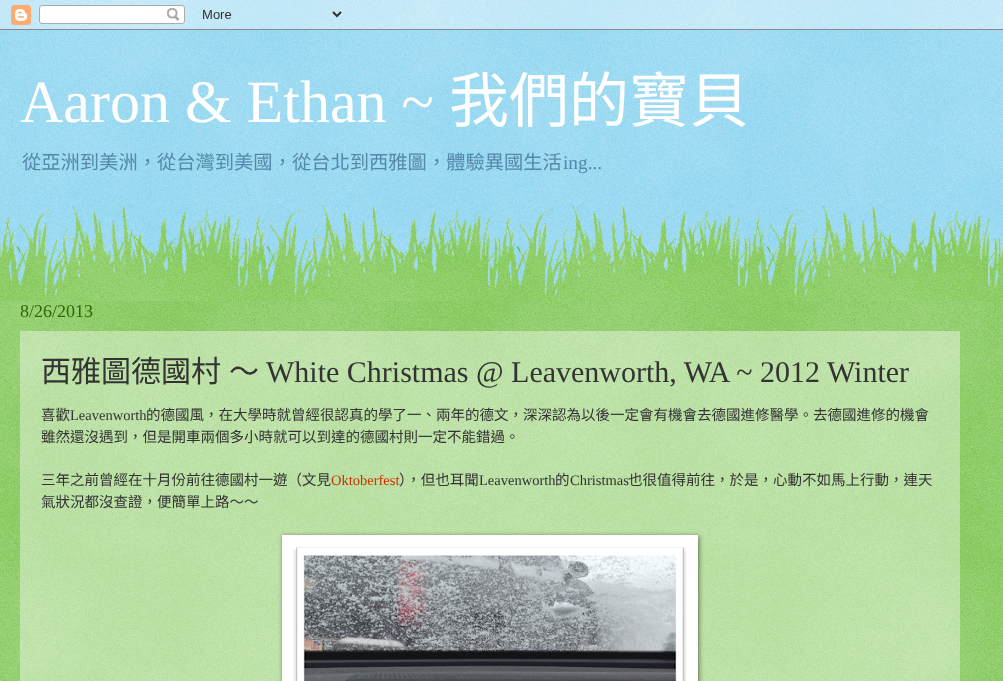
<!DOCTYPE html>
<meta charset="utf-8">
<style>body { margin: 0 } canvas { display: block }</style>
<canvas id="canvas" width="1003" height="681"></canvas>
<img id="img1" src="img_01.png" hidden>
<img id="img2" src="img_02.png" hidden>
<img id="img3" src="img_03.png" hidden>
<img id="img4" src="img_04.png" hidden>
<img id="img5" src="img_05.png" hidden>
<script>
window.onload = function () {
	const canvas = document.getElementById("canvas");
	const ctx = canvas.getContext("2d");
	ctx.miterLimit = 4;
	ctx.fontKerning = "normal";
	function txt(s, x, y) {
		ctx.fillText(s, x, y);
	}
	function fill(x, y, w, h) {
		ctx.fillRect(x, y, w, h);
	}
	function img(id, x, y, w, h) {
		ctx.drawImage(document.getElementById(id), x, y, w, h);
	}

	ctx.fillStyle = "#77CCEE";
	fill(0, 0, 1003, 681);
	img("img1", 0, 0, 1003, 296);
	img("img2", 0, 0, 1003, 30);
	ctx.fillStyle = "#66BB33";
	fill(0, 301, 1003, 380);
	img("img3", 0, 301, 1003, 380);
	img("img4", 0, 205, 1003, 96);
	ctx.fillStyle = "rgba(255, 255, 255, 0.4)";
	fill(20, 331, 940, 350);
	ctx.fillStyle = "rgba(0, 0, 0, 0.5)";
	ctx.filter = "blur(2.5px)";
	ctx.beginPath();
	ctx.rect(283, 536, 416, 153);
	ctx.fill();
	ctx.filter = "none";
	ctx.fillStyle = "#FFFFFF";
	fill(282, 535, 416, 146);
	img("img5", 293, 547, 394, 134);
	ctx.font = "60px Liberation Serif";
	txt("Aaron & Ethan ~", 20, 122);
	ctx.font = "60px Noto Sans CJK TC";
	txt("我們的寶貝", 449, 122);
	ctx.font = "19.3px Noto Sans CJK TC";
	ctx.fillStyle = "#5588AA";
	txt("從亞洲到美洲，從台灣到美國，從台北到西雅圖，體驗異國生活", 22, 169);
	ctx.font = "19.3px Liberation Serif";
	txt("ing...", 563, 169);
	ctx.font = "18px Liberation Serif";
	ctx.fillStyle = "#336600";
	txt("8/26/2013", 20, 317);
	ctx.font = "30px Noto Sans CJK TC";
	ctx.fillStyle = "#333333";
	txt("西雅圖德國村", 41, 382);
	txt("～", 229, 382);
	ctx.font = "30px Liberation Serif";
	txt("White Christmas @ Leavenworth, WA ~ 2012 Winter", 266, 382);
	ctx.font = "14.5px Noto Sans CJK TC";
	txt("喜歡", 41, 420);
	ctx.font = "14.5px Liberation Serif";
	txt("Leavenworth", 70, 420);
	ctx.font = "14.5px Noto Sans CJK TC";
	txt("的德國風，在大學時就曾經很認真的學了一、兩年的德文，深深認為以後一定會有機會去德國進修醫學。去德國進修的機會", 146, 420);
	txt("雖然還沒遇到，但是開車兩個多小時就可以到達的德國村則一定不能錯過。", 41, 442);
	txt("三年之前曾經在十月份前往德國村一遊（文見", 41, 485);
	ctx.font = "14.5px Liberation Serif";
	ctx.fillStyle = "#CC3300";
	txt("Oktoberfest", 331, 485);
	ctx.font = "14.5px Noto Sans CJK TC";
	ctx.fillStyle = "#333333";
	txt("），但也耳聞", 399, 485);
	ctx.font = "14.5px Liberation Serif";
	txt("Leavenworth", 479, 485);
	ctx.font = "14.5px Noto Sans CJK TC";
	txt("的", 555, 485);
	ctx.font = "14.5px Liberation Serif";
	txt("Christmas", 570, 485);
	ctx.font = "14.5px Noto Sans CJK TC";
	txt("也很值得前往，於是，心動不如馬上行動，連天", 628, 485);
	txt("氣狀況都沒查證，便簡單上路～～", 41, 507);
};
</script>
